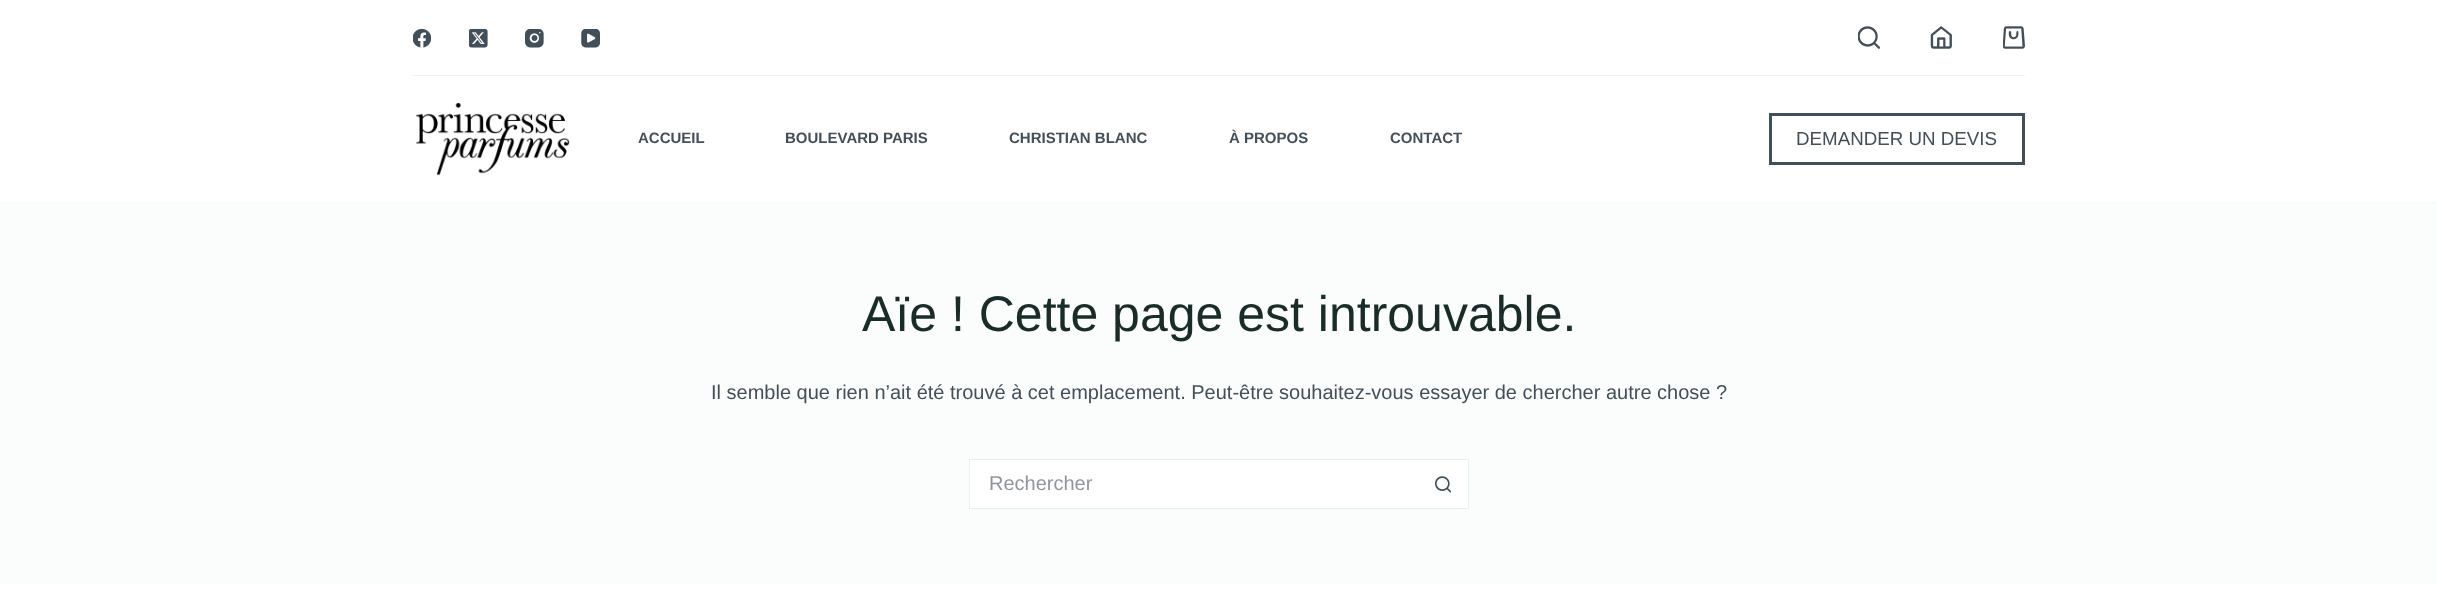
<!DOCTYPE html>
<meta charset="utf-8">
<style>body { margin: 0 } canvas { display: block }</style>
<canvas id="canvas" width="2437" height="592"></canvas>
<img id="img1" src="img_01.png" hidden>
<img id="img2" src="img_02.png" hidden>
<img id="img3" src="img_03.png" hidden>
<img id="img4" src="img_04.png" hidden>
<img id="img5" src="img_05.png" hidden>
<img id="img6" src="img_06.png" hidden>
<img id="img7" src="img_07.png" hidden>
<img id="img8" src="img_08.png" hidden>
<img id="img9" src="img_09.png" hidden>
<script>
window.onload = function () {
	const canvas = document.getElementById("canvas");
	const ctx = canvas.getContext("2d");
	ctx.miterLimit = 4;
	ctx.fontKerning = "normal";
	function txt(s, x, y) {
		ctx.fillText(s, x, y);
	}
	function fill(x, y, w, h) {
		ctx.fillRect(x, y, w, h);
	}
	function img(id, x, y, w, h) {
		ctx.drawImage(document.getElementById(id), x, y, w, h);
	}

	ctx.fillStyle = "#FBFCFC";
	fill(0, 0, 2437, 592);
	ctx.fillStyle = "#FFFFFF";
	fill(0, 0, 2437, 201);
	img("img1", 413, 29, 18, 19);
	img("img2", 469, 29, 19, 19);
	img("img3", 525, 29, 19, 19);
	img("img4", 581, 29, 19, 19);
	img("img5", 1858, 26, 22, 23);
	img("img6", 1930, 26, 22, 23);
	img("img7", 2003, 26, 22, 23);
	ctx.fillStyle = "#F0F1F3";
	fill(413, 75, 1612, 1);
	img("img8", 416, 102, 154, 74);
	ctx.strokeStyle = "#434F58";
	ctx.lineWidth = 3;
	ctx.strokeRect(1770.5, 114.5, 253, 49);
	ctx.fillStyle = "#FFFFFF";
	fill(970, 460, 498, 48);
	ctx.fillStyle = "#E6F0EE";
	fill(969, 459, 500, 1);
	fill(969, 508, 450, 1);
	fill(969, 459, 1, 50);
	fill(1468, 459, 1, 50);
	fill(1419, 508, 50, 1);
	img("img9", 1435, 476, 16, 17);
	ctx.fillStyle = "#FFFFFF";
	fill(0, 584, 2437, 8);
	ctx.font = "bold 15px Liberation Sans";
	ctx.fillStyle = "#434F58";
	txt("ACCUEIL", 638, 143);
	txt("BOULEVARD PARIS", 785, 143);
	txt("CHRISTIAN BLANC", 1009, 143);
	txt("À PROPOS", 1229, 143);
	txt("CONTACT", 1390, 143);
	ctx.font = "18.75px Liberation Sans";
	txt("DEMANDER UN DEVIS", 1796, 145);
	ctx.font = "50px Liberation Sans";
	ctx.fillStyle = "#192C27";
	txt("Aïe ! Cette page est introuvable.", 862, 331);
	ctx.font = "20px Liberation Sans";
	ctx.fillStyle = "#434F58";
	txt("Il semble que rien n’ait été trouvé à cet emplacement. Peut-être souhaitez-vous essayer de chercher autre chose ?", 711, 399);
	ctx.fillStyle = "#8E959B";
	txt("Rechercher", 989, 490);
};
</script>
